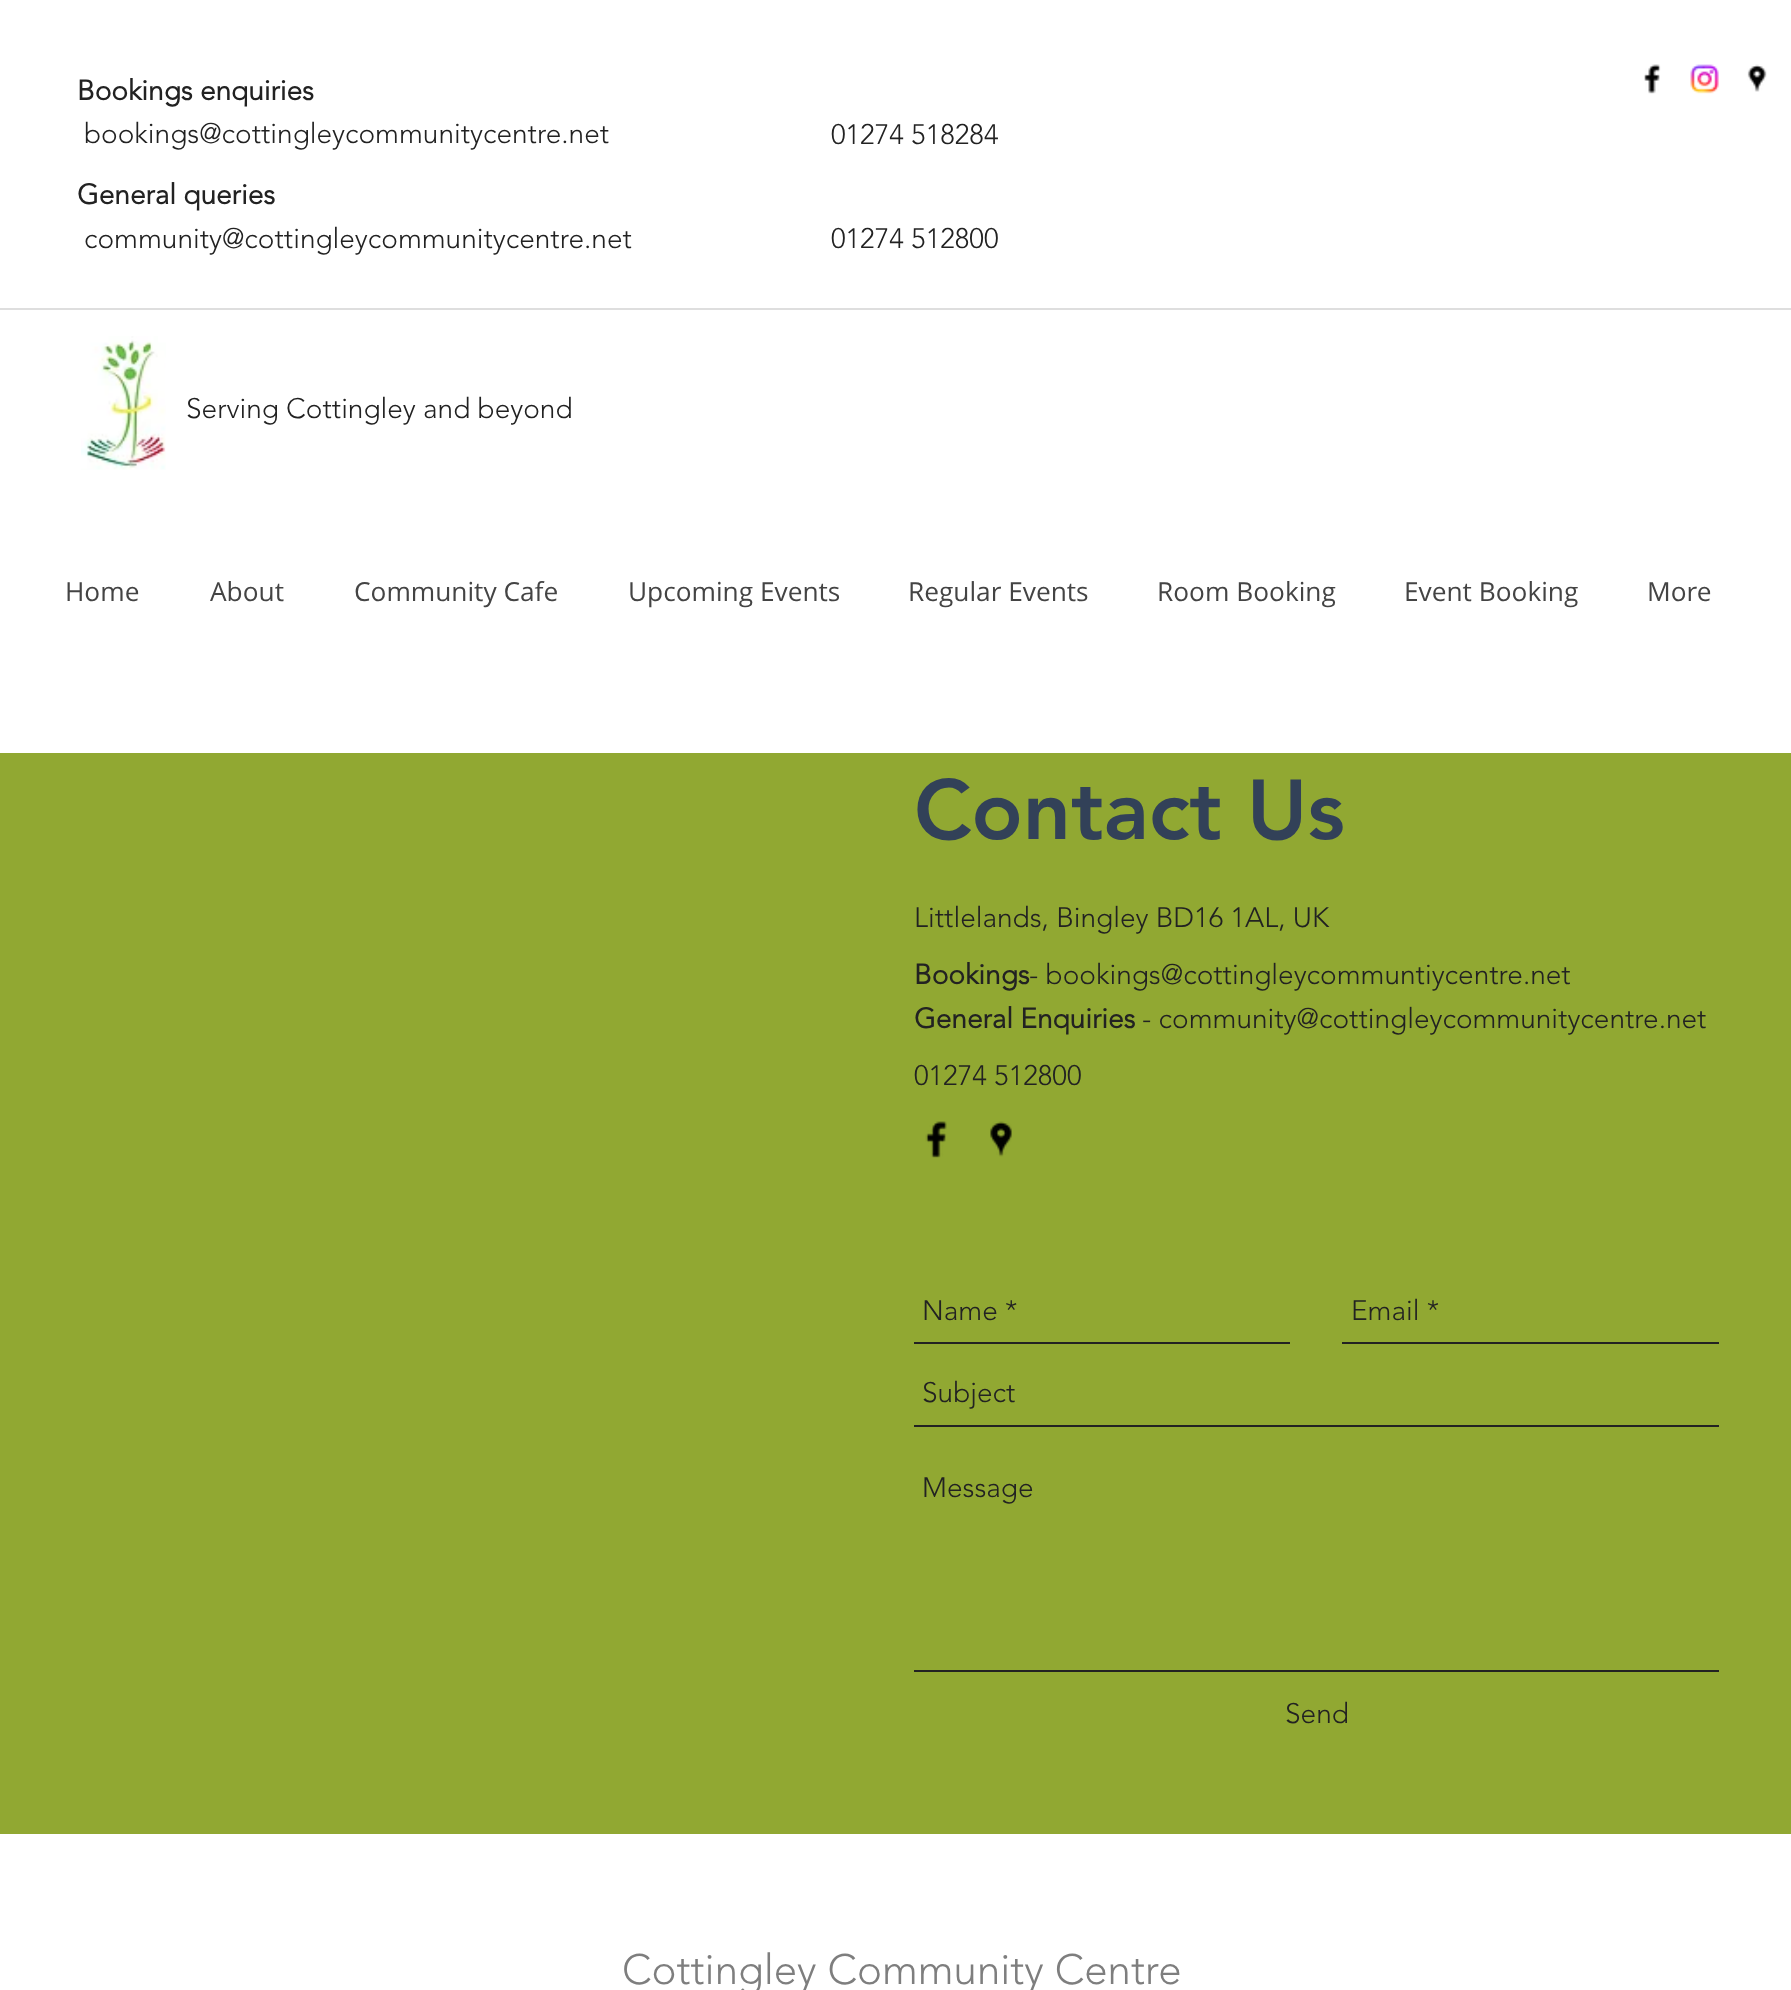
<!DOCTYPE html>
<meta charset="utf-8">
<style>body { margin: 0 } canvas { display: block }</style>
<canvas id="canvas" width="1791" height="1990"></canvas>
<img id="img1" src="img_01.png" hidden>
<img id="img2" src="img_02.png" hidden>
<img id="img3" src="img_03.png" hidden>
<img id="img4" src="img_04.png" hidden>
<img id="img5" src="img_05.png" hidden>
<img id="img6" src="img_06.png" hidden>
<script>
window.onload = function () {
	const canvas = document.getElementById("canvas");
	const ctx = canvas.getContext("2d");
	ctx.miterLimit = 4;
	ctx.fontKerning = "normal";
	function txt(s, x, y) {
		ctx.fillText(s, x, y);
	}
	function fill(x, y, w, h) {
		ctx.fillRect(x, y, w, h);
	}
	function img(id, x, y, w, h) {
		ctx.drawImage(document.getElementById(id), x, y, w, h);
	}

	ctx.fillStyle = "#FFFFFF";
	fill(0, 0, 1791, 1990);
	img("img1", 1644, 64, 17, 30);
	img("img2", 1690, 64, 29, 30);
	img("img3", 1747, 64, 20, 28);
	ctx.fillStyle = "#DEDEDE";
	fill(0, 308, 1791, 2);
	img("img4", 81, 336, 85, 134);
	ctx.fillStyle = "#91A832";
	fill(0, 753, 1791, 1081);
	img("img5", 925, 1121, 22, 37);
	img("img6", 990, 1121, 22, 36);
	ctx.fillStyle = "#222222";
	fill(914, 1342, 376, 2);
	fill(1342, 1342, 377, 2);
	fill(914, 1425, 805, 2);
	fill(914, 1670, 805, 2);
	ctx.font = "bold 28px 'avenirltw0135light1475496'";
	txt("Bookings enquiries", 77, 100);
	ctx.font = "300 28px 'avenirltw0135light1475496'";
	txt("bookings@cottingleycommunitycentre.net", 84, 143);
	txt("01274 518284", 831, 144);
	ctx.font = "bold 28px 'avenirltw0135light1475496'";
	txt("General queries", 77, 204);
	ctx.font = "300 28px 'avenirltw0135light1475496'";
	txt("community@cottingleycommunitycentre.net", 84, 248);
	txt("01274 512800", 831, 248);
	txt("Serving Cottingley and beyond", 186, 418);
	ctx.font = "26.25px Open Sans";
	ctx.fillStyle = "#444444";
	txt("Home", 65, 601);
	txt("About", 210, 601);
	txt("Community Cafe", 354, 601);
	txt("Upcoming Events", 628, 601);
	txt("Regular Events", 908, 601);
	txt("Room Booking", 1157, 601);
	txt("Event Booking", 1404, 601);
	txt("More", 1647, 601);
	ctx.font = "900 84px 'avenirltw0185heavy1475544'";
	ctx.fillStyle = "#324158";
	txt("Contact Us", 914, 839);
	ctx.font = "300 28px 'avenirltw0135light1475496'";
	ctx.fillStyle = "#222222";
	txt("Littlelands, Bingley BD16 1AL, UK", 914, 927);
	ctx.font = "bold 28px 'avenirltw0135light1475496'";
	txt("Bookings", 914, 984);
	ctx.font = "300 28px 'avenirltw0135light1475496'";
	txt("- bookings@cottingleycommuntiycentre.net", 1029, 984);
	ctx.font = "bold 28px 'avenirltw0135light1475496'";
	txt("General Enquiries", 914, 1028);
	ctx.font = "300 28px 'avenirltw0135light1475496'";
	txt("- community@cottingleycommunitycentre.net", 1142, 1028);
	txt("01274 512800", 914, 1085);
	txt("Name *", 922, 1320);
	txt("Email *", 1351, 1320);
	txt("Subject", 922, 1402);
	txt("Message", 922, 1497);
	txt("Send", 1285, 1723);
	ctx.font = "300 42px 'avenirltw0135light1475496'";
	ctx.fillStyle = "#7E7E7E";
	txt("Cottingley Community Centre", 622, 1984);
};
</script>
